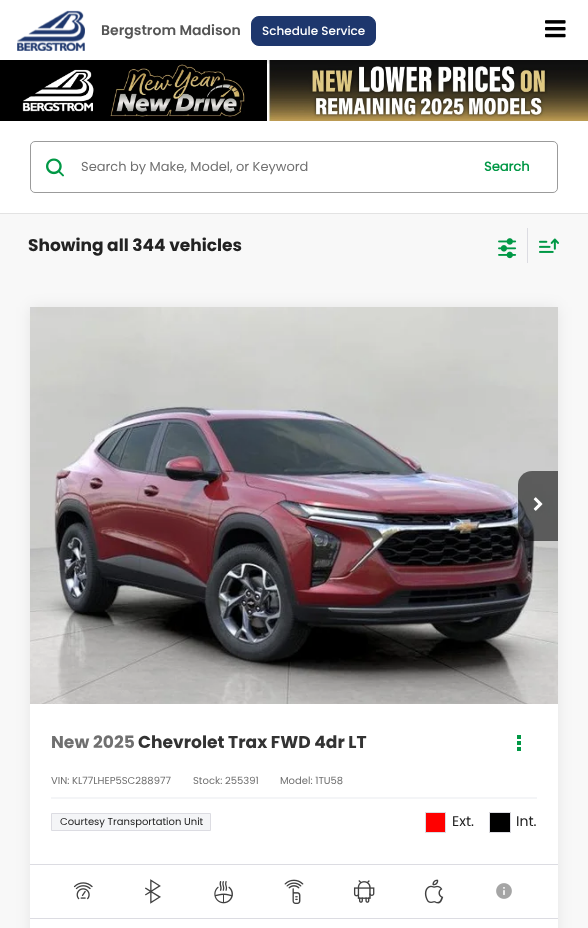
<!DOCTYPE html>
<meta charset="utf-8">
<style>body { margin: 0 } canvas { display: block }</style>
<canvas id="canvas" width="588" height="928"></canvas>
<img id="img1" src="img_03.png" hidden>
<img id="img2" src="img_01.png" hidden>
<img id="img3" src="img_02.png" hidden>
<img id="img4" src="img_04.png" hidden>
<img id="img5" src="img_05.png" hidden>
<img id="img6" src="img_06.png" hidden>
<img id="img7" src="img_07.png" hidden>
<img id="img8" src="img_08.png" hidden>
<img id="img9" src="img_09.png" hidden>
<img id="img10" src="img_10.png" hidden>
<img id="img11" src="img_11.png" hidden>
<img id="img12" src="img_12.png" hidden>
<img id="img13" src="img_13.png" hidden>
<img id="img14" src="img_14.png" hidden>
<img id="img15" src="img_15.png" hidden>
<script>
window.onload = function () {
	const canvas = document.getElementById("canvas");
	const ctx = canvas.getContext("2d");
	ctx.miterLimit = 4;
	ctx.fontKerning = "normal";
	function txt(s, x, y) {
		ctx.fillText(s, x, y);
	}
	function fill(x, y, w, h) {
		ctx.fillRect(x, y, w, h);
	}
	function img(id, x, y, w, h) {
		ctx.drawImage(document.getElementById(id), x, y, w, h);
	}

	ctx.fillStyle = "#FFFFFF";
	fill(0, 0, 588, 928);
	img("img1", 0, 60, 588, 61);
	ctx.save();
	ctx.beginPath();
	ctx.rect(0, 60, 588, 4);
	ctx.clip();
	ctx.fillStyle = "rgba(0, 0, 0, 0.1)";
	ctx.filter = "blur(1.5px)";
	ctx.beginPath();
	ctx.rect(0, 3, 588, 60);
	ctx.fill();
	ctx.filter = "none";
	ctx.restore();
	img("img2", 545, 20, 21, 18);
	img("img3", 17, 10, 68, 41);
	ctx.fillStyle = "#1E376D";
	ctx.beginPath();
	ctx.roundRect(251.5, 16.5, 124, 29, 7.5);
	ctx.fill();
	ctx.strokeStyle = "#1E376D";
	ctx.stroke();
	ctx.fillStyle = "#F8F8F8";
	fill(0, 214, 588, 714);
	ctx.fillStyle = "#E3E3E3";
	fill(0, 213, 588, 1);
	ctx.beginPath();
	ctx.roundRect(30.5, 141.5, 527, 51, 4.5);
	ctx.strokeStyle = "#9B9B9B";
	ctx.stroke();
	img("img4", 46, 158, 18, 19);
	img("img5", 498, 238, 19, 21);
	ctx.fillStyle = "#DCDCE2";
	fill(527, 228, 1, 35);
	img("img6", 539, 238, 20, 15);
	ctx.fillStyle = "rgba(0, 0, 0, 0.07)";
	ctx.filter = "blur(7.5px)";
	ctx.beginPath();
	ctx.rect(30, 307, 528, 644);
	ctx.fill();
	ctx.filter = "none";
	ctx.fillStyle = "#FFFFFF";
	fill(30, 704, 528, 224);
	img("img7", 30, 307, 528, 397);
	ctx.fillStyle = "rgba(0, 0, 0, 0.55)";
	ctx.beginPath();
	ctx.roundRect(518, 471, 40, 70, [14, 0, 0, 14]);
	ctx.fill();
	img("img8", 533, 497, 10, 14);
	ctx.fillStyle = "#009845";
	fill(517, 735, 4, 4);
	fill(517, 741, 4, 4);
	fill(517, 747, 4, 4);
	ctx.fillStyle = "#F4F5F7";
	fill(51, 797, 486, 2);
	ctx.beginPath();
	ctx.rect(51.5, 813.5, 159, 17);
	ctx.fill();
	ctx.strokeStyle = "#DCDCE2";
	ctx.stroke();
	ctx.fillStyle = "#FF0000";
	ctx.beginPath();
	ctx.rect(425.5, 812.5, 20, 20);
	ctx.fill();
	ctx.stroke();
	ctx.fillStyle = "#000000";
	ctx.beginPath();
	ctx.rect(489.5, 812.5, 21, 20);
	ctx.fill();
	ctx.stroke();
	ctx.fillStyle = "#DCDCE2";
	fill(30, 864, 528, 1);
	img("img9", 73, 882, 20, 18);
	img("img10", 145, 879, 16, 25);
	img("img11", 214, 881, 19, 23);
	img("img12", 284, 879, 20, 25);
	img("img13", 353, 880, 22, 23);
	img("img14", 424, 879, 20, 25);
	img("img15", 496, 883, 16, 16);
	fill(30, 918, 528, 1);
	ctx.font = "600 14px Poppins";
	ctx.fillStyle = "#555555";
	txt("Bergstrom Madison", 101, 35);
	ctx.font = "500 12px Poppins";
	ctx.fillStyle = "#FFFFFF";
	txt("Schedule Service", 262, 35);
	ctx.font = "13px Poppins";
	ctx.fillStyle = "#707070";
	txt("Search by Make, Model, or Keyword", 81, 171);
	ctx.font = "bold 13px 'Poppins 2'";
	ctx.fillStyle = "#009845";
	txt("Search", 484, 171);
	ctx.font = "bold 17px Poppins";
	ctx.fillStyle = "#222222";
	txt("Showing all 344 vehicles", 28, 251);
	ctx.font = "bold 17.1px Poppins";
	ctx.fillStyle = "#707070";
	txt("New", 51, 748);
	txt("2025", 93, 748);
	ctx.fillStyle = "#333333";
	txt("Chevrolet Trax FWD 4dr LT", 138, 748);
	ctx.font = "10px Poppins";
	ctx.fillStyle = "#707070";
	txt("VIN: KL77LHEP5SC288977", 51, 784);
	txt("Stock: 255391", 193, 784);
	txt("Model: 1TU58", 280, 784);
	ctx.fillStyle = "#222222";
	txt("Courtesy Transportation Unit", 60, 825);
	ctx.font = "14px Poppins";
	txt("Ext.", 452, 826);
	txt("Int.", 516, 826);
};
</script>
